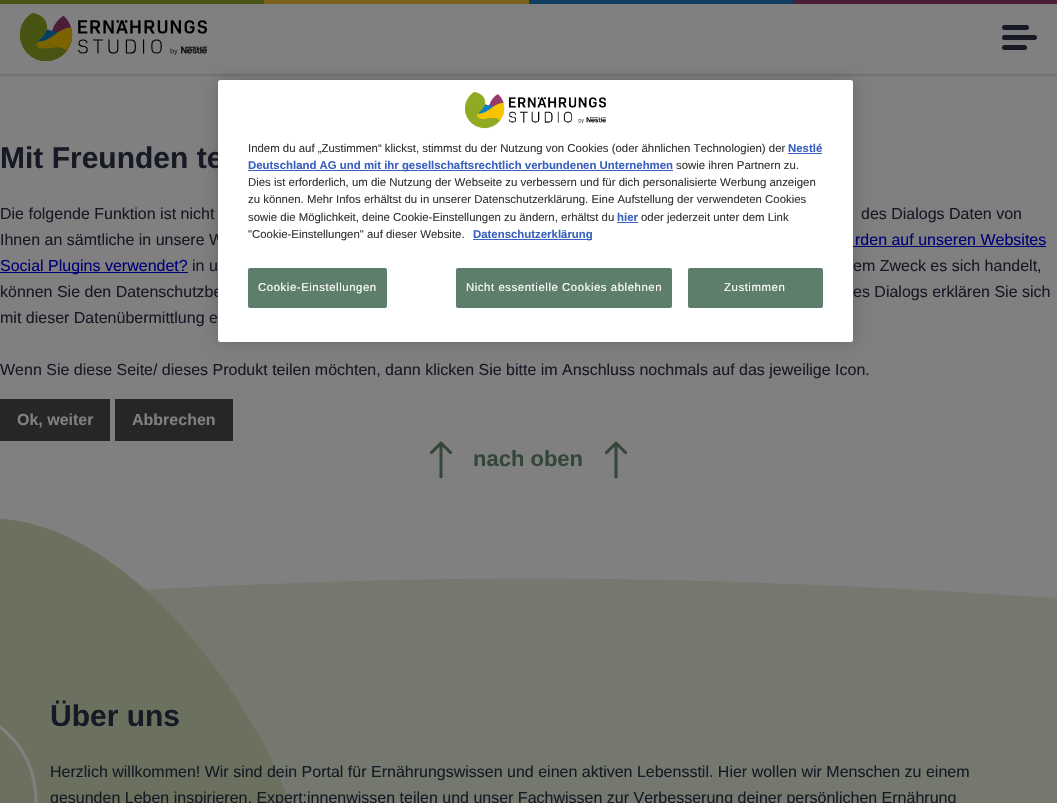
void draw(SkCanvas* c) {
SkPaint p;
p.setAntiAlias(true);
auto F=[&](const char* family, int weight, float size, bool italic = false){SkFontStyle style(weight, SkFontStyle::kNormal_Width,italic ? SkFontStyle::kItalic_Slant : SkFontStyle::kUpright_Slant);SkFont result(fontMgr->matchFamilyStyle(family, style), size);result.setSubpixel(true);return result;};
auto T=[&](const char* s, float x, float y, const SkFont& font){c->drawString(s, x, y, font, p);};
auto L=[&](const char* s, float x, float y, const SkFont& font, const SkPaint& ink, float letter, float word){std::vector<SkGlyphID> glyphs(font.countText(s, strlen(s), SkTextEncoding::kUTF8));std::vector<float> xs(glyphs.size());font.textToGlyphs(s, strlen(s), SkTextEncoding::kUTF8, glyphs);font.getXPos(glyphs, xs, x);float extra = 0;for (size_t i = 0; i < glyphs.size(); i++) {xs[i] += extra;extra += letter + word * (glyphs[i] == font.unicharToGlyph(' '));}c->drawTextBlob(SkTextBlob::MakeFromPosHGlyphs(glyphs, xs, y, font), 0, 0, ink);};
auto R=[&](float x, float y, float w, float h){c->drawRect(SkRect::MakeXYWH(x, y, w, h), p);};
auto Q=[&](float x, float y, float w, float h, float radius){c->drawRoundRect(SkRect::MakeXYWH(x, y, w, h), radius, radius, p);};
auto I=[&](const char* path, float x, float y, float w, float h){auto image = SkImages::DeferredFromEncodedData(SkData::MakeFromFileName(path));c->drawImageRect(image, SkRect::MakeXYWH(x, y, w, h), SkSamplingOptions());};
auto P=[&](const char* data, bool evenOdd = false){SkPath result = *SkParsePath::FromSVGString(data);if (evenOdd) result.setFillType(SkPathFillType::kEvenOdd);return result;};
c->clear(0xff808080);
I("2.png",20,13,187,48);
{
const SkColor colors[] = {0xff6d6d6d,0xff808080};
const float stops[] = {0,1};
const SkPoint ends[] = {{529,74}, {529,77}};
p.setShader(SkGradientShader::MakeLinear(ends, colors, stops, 2, SkTileMode::kClamp));
p.setAlpha(255);
}
R(0,74,1057,3);
p.setShader(nullptr);
p.setColor(0xff000077);
R(853,246,193,1);
p.setColor(0x33000000);
p.setMaskFilter(SkMaskFilter::MakeBlur(kNormal_SkBlurStyle, 9));
c->drawRoundRect(SkRect::MakeXYWH(218,80,635,262),2.5,2.5,p);
p.setMaskFilter(nullptr);
auto f1 = F("Liberation Sans",700,30);
p.setColor(0xff171a25);
T("Mit Freunden te",0,168,f1);
auto f2 = F("Liberation Sans",400,16);
T("Ihnen an sämtliche in unsere W",0,245,f2);
T("können Sie den Datenschutzbe",0,297,f2);
p.setColor(0xffffffff);
Q(218,80,635,262,2.5);
I("1.png",465,92,141,37);
auto f3 = F("Liberation Sans",400,11.4);
p.setColor(0xff333333);
T("Indem du auf „Zustimmen“ klickst, stimmst du der Nutzung von Cookies (oder ähnlichen Technologien) der",248,152,f3);
auto f4 = F("Liberation Sans",700,11.4);
p.setColor(0xff3860be);
T("Nestlé",788,152,f4);
R(788,153,34,1);
R(248,170,425,1);
T("Deutschland AG und mit ihr gesellschaftsrechtlich verbundenen Unternehmen",248,169,f4);
p.setColor(0xff333333);
T("sowie ihren Partnern zu.",676,169,f3);
T("Dies ist erforderlich, um die Nutzung der Webseite zu verbessern und für dich personalisierte Werbung anzeigen",248,186,f3);
T("zu können. Mehr Infos erhältst du in unserer Datenschutzerklärung. Eine Aufstellung der verwendeten Cookies",248,203,f3);
T("sowie die Möglichkeit, deine Cookie-Einstellungen zu ändern, erhältst du",248,221,f3);
p.setColor(0xff3860be);
T("hier",617,221,f4);
R(617,222,21,1);
p.setColor(0xff333333);
T("oder jederzeit unter dem Link",641,221,f3);
T("\"Cookie-Einstellungen\" auf dieser Website.",248,238,f3);
p.setColor(0xff3860be);
R(473,239,119,1);
T("Datenschutzerklärung",473,238,f4);
p.setColor(0xff5d7e6a);
Q(248,268,139,40,2);
p.setColor(0xffffffff);
L("Cookie-Einstellungen",258,291,f3,p,.55,0);
p.setColor(0xff5d7e6a);
Q(456,268,216,40,2);
p.setColor(0xffffffff);
L("Nicht essentielle Cookies ablehnen",466,291,f3,p,.55,0);
p.setColor(0xff5d7e6a);
Q(688,268,135,40,2);
p.setColor(0xffffffff);
L("Zustimmen",724,291,f3,p,.55,0);
p.setColor(0xff495516);
R(0,0,264,4);
p.setColor(0xff7c621a);
R(264,0,265,4);
p.setColor(0xff0f3d5f);
R(529,0,264,4);
p.setColor(0xff4d1d37);
R(793,0,264,4);
p.setColor(0xff171a25);
Q(1002,25,27,5,2.5);
Q(1002,35,35,5,2.5);
Q(1002,45,25,5,2.5);
T("Die folgende Funktion ist nicht",0,219,f2);
T("des Dialogs Daten von",861,219,f2);
p.setColor(0xff000077);
T("rden auf unseren Websites",855,245,f2);
R(0,272,188,1);
T("Social Plugins verwendet?",0,271,f2);
p.setColor(0xff171a25);
T("in u",192,271,f2);
T("em Zweck es sich handelt,",853,271,f2);
T("es Dialogs erklären Sie sich",853,297,f2);
T("mit dieser Datenübermittlung e",0,323,f2);
T("Wenn Sie diese Seite/ dieses Produkt teilen möchten, dann klicken Sie bitte im Anschluss nochmals auf das jeweilige Icon.",0,375,f2);
p.setColor(0xff262626);
R(0,399,110,42);
auto f5 = F("Liberation Sans",700,16);
p.setColor(0xff808080);
T("Ok, weiter",17,425,f5);
p.setColor(0xff262626);
R(115,399,118,42);
p.setColor(0xff808080);
T("Abbrechen",132,425,f5);
I("3.png",430,441,22,37);
auto f6 = F("Liberation Sans",700,22);
p.setColor(0xff34453a);
T("nach oben",473,466,f6);
I("3.png",605,441,22,37);
p.setColor(0xff75786e);
R(144,578,913,225);
p.setColor(0xff808080);
c->drawPath(P("M1057 598c-409-26-641-26-1057 0v-20h1057z"),p);
I("4.png",0,518,289,285);
p.setColor(0xff171a25);
T("Über uns",50,726,f1);
T("Herzlich willkommen! Wir sind dein Portal für Ernährungswissen und einen aktiven Lebensstil. Hier wollen wir Menschen zu einem",50,777,f2);
T("gesunden Leben inspirieren, Expert:innenwissen teilen und unser Fachwissen zur Verbesserung deiner persönlichen Ernährung",50,803,f2);
}
